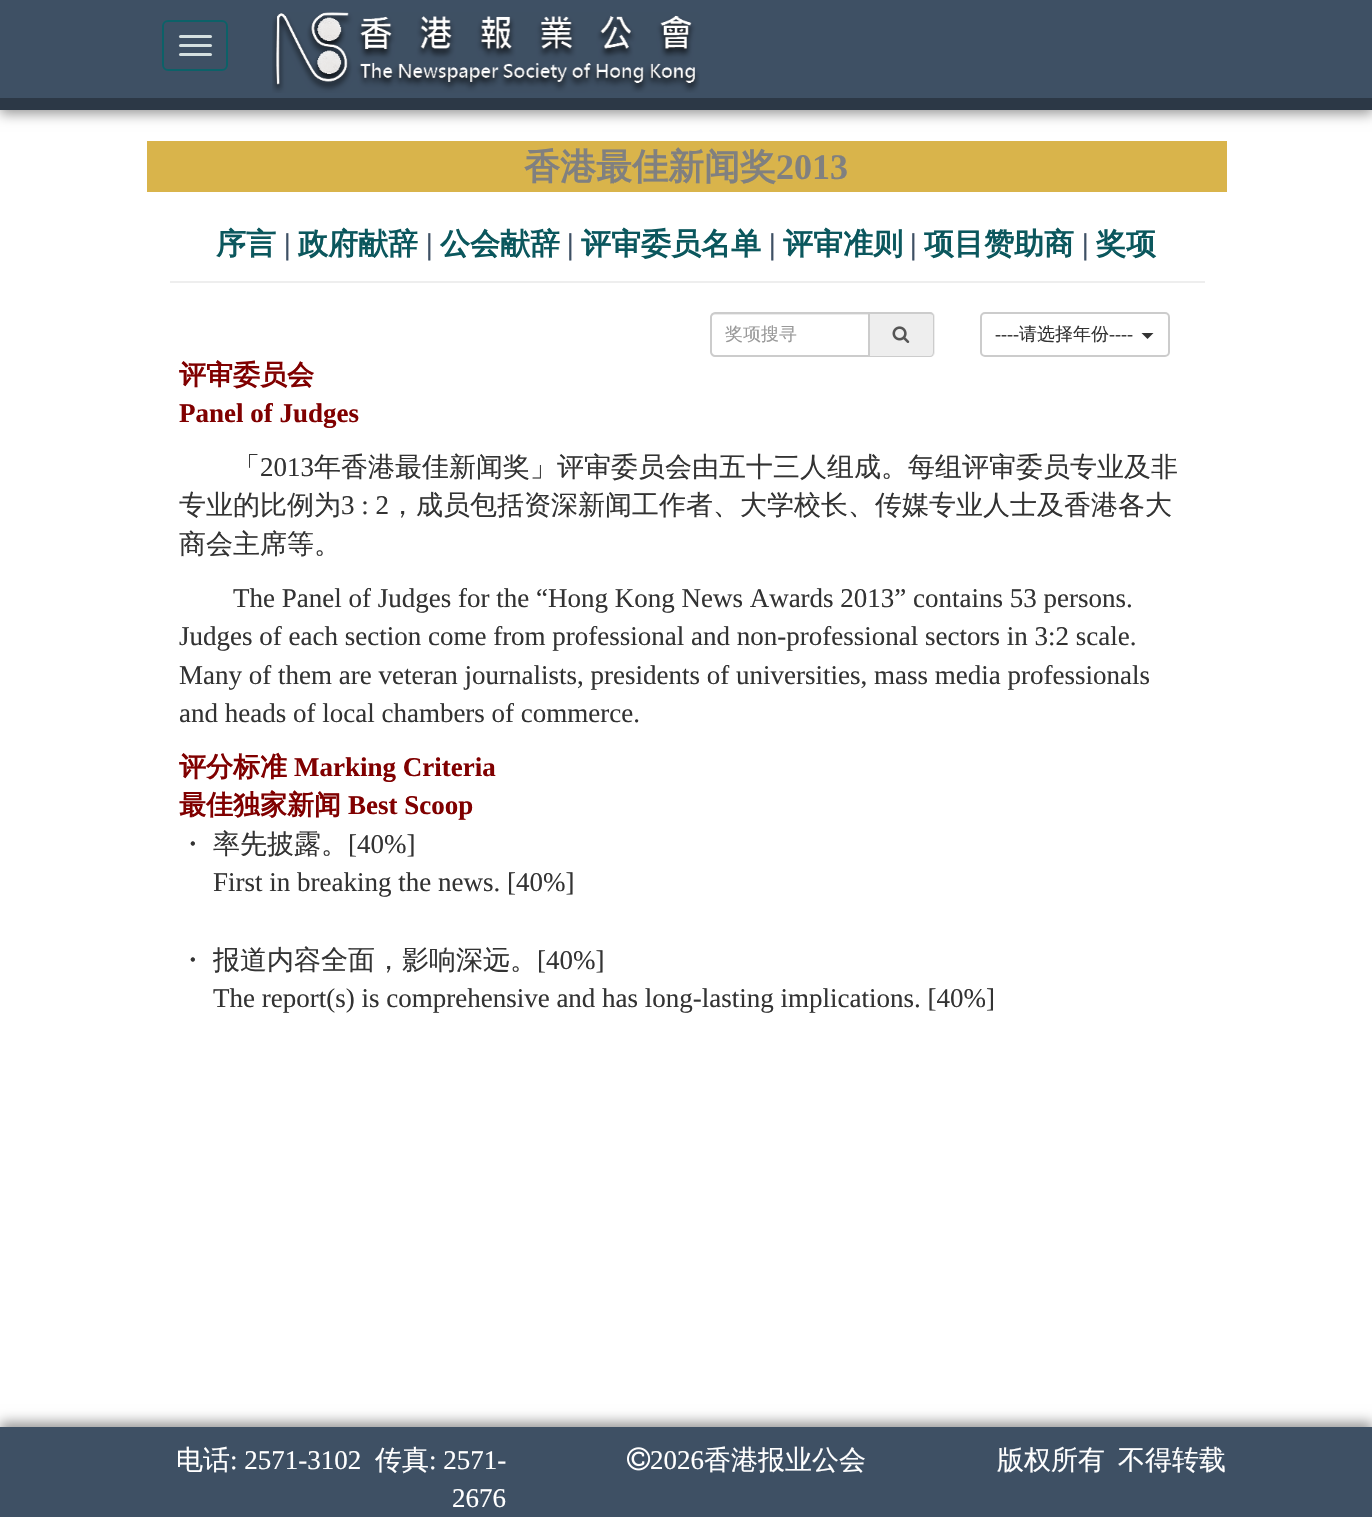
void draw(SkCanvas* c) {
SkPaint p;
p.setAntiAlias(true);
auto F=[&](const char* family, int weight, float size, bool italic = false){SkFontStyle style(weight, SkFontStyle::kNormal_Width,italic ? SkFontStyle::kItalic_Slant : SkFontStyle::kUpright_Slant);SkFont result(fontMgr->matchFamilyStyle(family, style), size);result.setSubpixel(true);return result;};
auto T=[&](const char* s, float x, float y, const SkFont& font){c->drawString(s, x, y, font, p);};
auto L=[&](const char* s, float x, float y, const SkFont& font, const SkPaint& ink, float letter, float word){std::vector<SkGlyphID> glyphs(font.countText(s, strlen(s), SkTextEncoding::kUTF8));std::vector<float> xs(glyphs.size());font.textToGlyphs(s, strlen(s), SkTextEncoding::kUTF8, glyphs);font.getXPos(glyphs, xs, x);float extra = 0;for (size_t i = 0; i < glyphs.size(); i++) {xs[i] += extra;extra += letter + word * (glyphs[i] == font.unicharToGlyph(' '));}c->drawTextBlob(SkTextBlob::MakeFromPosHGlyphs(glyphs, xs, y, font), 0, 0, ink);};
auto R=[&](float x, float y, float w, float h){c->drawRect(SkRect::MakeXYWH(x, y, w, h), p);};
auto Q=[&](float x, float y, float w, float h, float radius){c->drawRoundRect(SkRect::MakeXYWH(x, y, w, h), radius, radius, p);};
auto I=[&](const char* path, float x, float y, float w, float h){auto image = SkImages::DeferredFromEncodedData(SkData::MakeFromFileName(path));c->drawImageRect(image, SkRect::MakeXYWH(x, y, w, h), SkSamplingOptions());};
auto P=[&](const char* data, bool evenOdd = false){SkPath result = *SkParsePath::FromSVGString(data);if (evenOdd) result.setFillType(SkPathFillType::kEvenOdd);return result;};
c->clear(0xffffffff);
p.setColor(0xff999999);
p.setMaskFilter(SkMaskFilter::MakeBlur(kNormal_SkBlurStyle, 6));
c->drawRect(SkRect::MakeXYWH(0,5,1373,109),p);
p.setMaskFilter(nullptr);
p.setColor(0xff3e5064);
R(0,0,1372,98);
p.setColor(0xff2c3846);
R(0,98,1372,12);
p.setStroke(true);
p.setStrokeWidth(2);
p.setColor(0xff0c6168);
c->drawRoundRect(SkRect::MakeXYWH(163,21,64,49),5,5,p);
p.setStroke(false);
p.setColor(0xffd5e0e0);
Q(179,35,33,3,1.5);
Q(179,44,33,3,1.5);
Q(179,53,33,3,1.5);
I("1.png",272,12,428,81);
p.setColor(0xffd9b44b);
R(147,141,1080,51);
auto f1 = F("WenQuanYi Zen Hei",700,36);
p.setColor(0xff808080);
T("香港最佳新闻奖",524,179,f1);
auto f2 = F("Liberation Serif",700,36);
T("2013",776,179,f2);
auto f3 = F("WenQuanYi Zen Hei",700,30);
p.setColor(0xff0b575d);
T("序言",216,254,f3);
auto f4 = F("Liberation Serif",700,30);
p.setColor(0xff3e5064);
T("|",284,254,f4);
p.setColor(0xff0b575d);
T("政府献辞",298,254,f3);
p.setColor(0xff3e5064);
T("|",426,254,f4);
p.setColor(0xff0b575d);
T("公会献辞",440,254,f3);
p.setColor(0xff3e5064);
T("|",567,254,f4);
p.setColor(0xff0b575d);
T("评审委员名单",581,254,f3);
p.setColor(0xff3e5064);
T("|",769,254,f4);
p.setColor(0xff0b575d);
T("评审准则",783,254,f3);
p.setColor(0xff3e5064);
T("|",910,254,f4);
p.setColor(0xff0b575d);
T("项目赞助商",924,254,f3);
p.setColor(0xff3e5064);
T("|",1082,254,f4);
p.setColor(0xff0b575d);
T("奖项",1096,254,f3);
p.setColor(0xffeeeeee);
R(170,281,1035,2);
p.setColor(0xffececec);
c->drawPath(P("M714 315h154v41h1v-42h-156c-2 0-2 2-2 4c0-2 1-3 3-3z"),p);
p.setStroke(true);
p.setColor(0xffcccccc);
c->drawPath(P("M715 313h154v43h-154c-2 0-4-2-4-4v-35c0-2 2-4 4-4z"),p);
auto f5 = F("WenQuanYi Zen Hei",500,18);
p.setStroke(false);
p.setColor(0xff999999);
T("奖项搜寻",725,340,f5);
p.setColor(0xffeeeeee);
c->drawPath(P("M870 312h60c3 0 5 2 5 5v35c0 3-2 5-5 5h-60z"),p);
p.setColor(0xffcccccc);
c->drawPath(P("M870 312h60c2 0 4 2 4 4v36c0 3-2 5-4 5h-60zm0 2h60c2 0 3 1 3 2v36c0 2-1 4-3 4h-60z",true),p);
I("2.png",892,326,18,17);
p.setStroke(true);
c->drawRoundRect(SkRect::MakeXYWH(981,313,188,43),4,4,p);
auto f6 = F("Liberation Serif",400,18);
p.setStroke(false);
p.setColor(0xff333333);
T("----",995,340,f6);
T("请选择年份",1019,340,f5);
T("----",1109,340,f6);
c->drawPath(P("M1141.5 333h12l-6 6z"),p);
auto f7 = F("WenQuanYi Zen Hei",700,27);
p.setColor(0xff800000);
T("评审委员会",179,384,f7);
auto f8 = F("Liberation Serif",700,27);
T("Panel of Judges",179,422,f8);
auto f9 = F("WenQuanYi Zen Hei",500,27);
p.setColor(0xff333333);
T("「",233,476,f9);
auto f10 = F("Liberation Serif",400,27);
T("2013",260,476,f10);
T("年香港最佳新闻奖」评审委员会由五十三人组成。每组评审委员专业及非",314,476,f9);
T("专业的比例为",179,514,f9);
T("3 : 2",341,514,f10);
T("，成员包括资深新闻工作者、大学校长、传媒专业人士及香港各大",389,514,f9);
T("商会主席等。",179,553,f9);
T("The Panel of Judges for the “Hong Kong News Awards 2013” contains 53 persons.",233,607,f10);
T("Judges of each section come from professional and non-professional sectors in 3:2 scale.",179,645,f10);
T("Many of them are veteran journalists, presidents of universities, mass media professionals",179,684,f10);
T("and heads of local chambers of commerce.",179,722,f10);
p.setColor(0xff800000);
T("评分标准",179,776,f7);
T("Marking Criteria",294,776,f8);
T("最佳独家新闻",179,814,f7);
T("Best Scoop",348,814,f8);
p.setColor(0xff333333);
L("・ 率先披露。",179,853,f9,p,0,-1);
T("[40%]",348,853,f10);
T("First in breaking the news. [40%]",213,891,f10);
L("・ 报道内容全面，影响深远。",179,969,f9,p,0,-1);
T("[40%]",537,969,f10);
T("The report(s) is comprehensive and has long-lasting implications. [40%]",213,1007,f10);
p.setColor(0xff999999);
p.setMaskFilter(SkMaskFilter::MakeBlur(kNormal_SkBlurStyle, 6));
c->drawRect(SkRect::MakeXYWH(0,1422,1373,90),p);
p.setMaskFilter(nullptr);
p.setColor(0xff3e5064);
R(0,1427,1372,90);
p.setColor(0xffffffff);
T("电话",176,1469,f9);
T(": 2571-3102",230,1469,f10);
T("传真",375,1469,f9);
T(": 2571-",429,1469,f10);
T("2676",452,1507,f10);
I("3.png",627,1447,24,24);
T("2026",650,1469,f10);
T("香港报业公会",704,1469,f9);
T("版权所有",997,1469,f9);
T("不得转载",1118,1469,f9);
}
